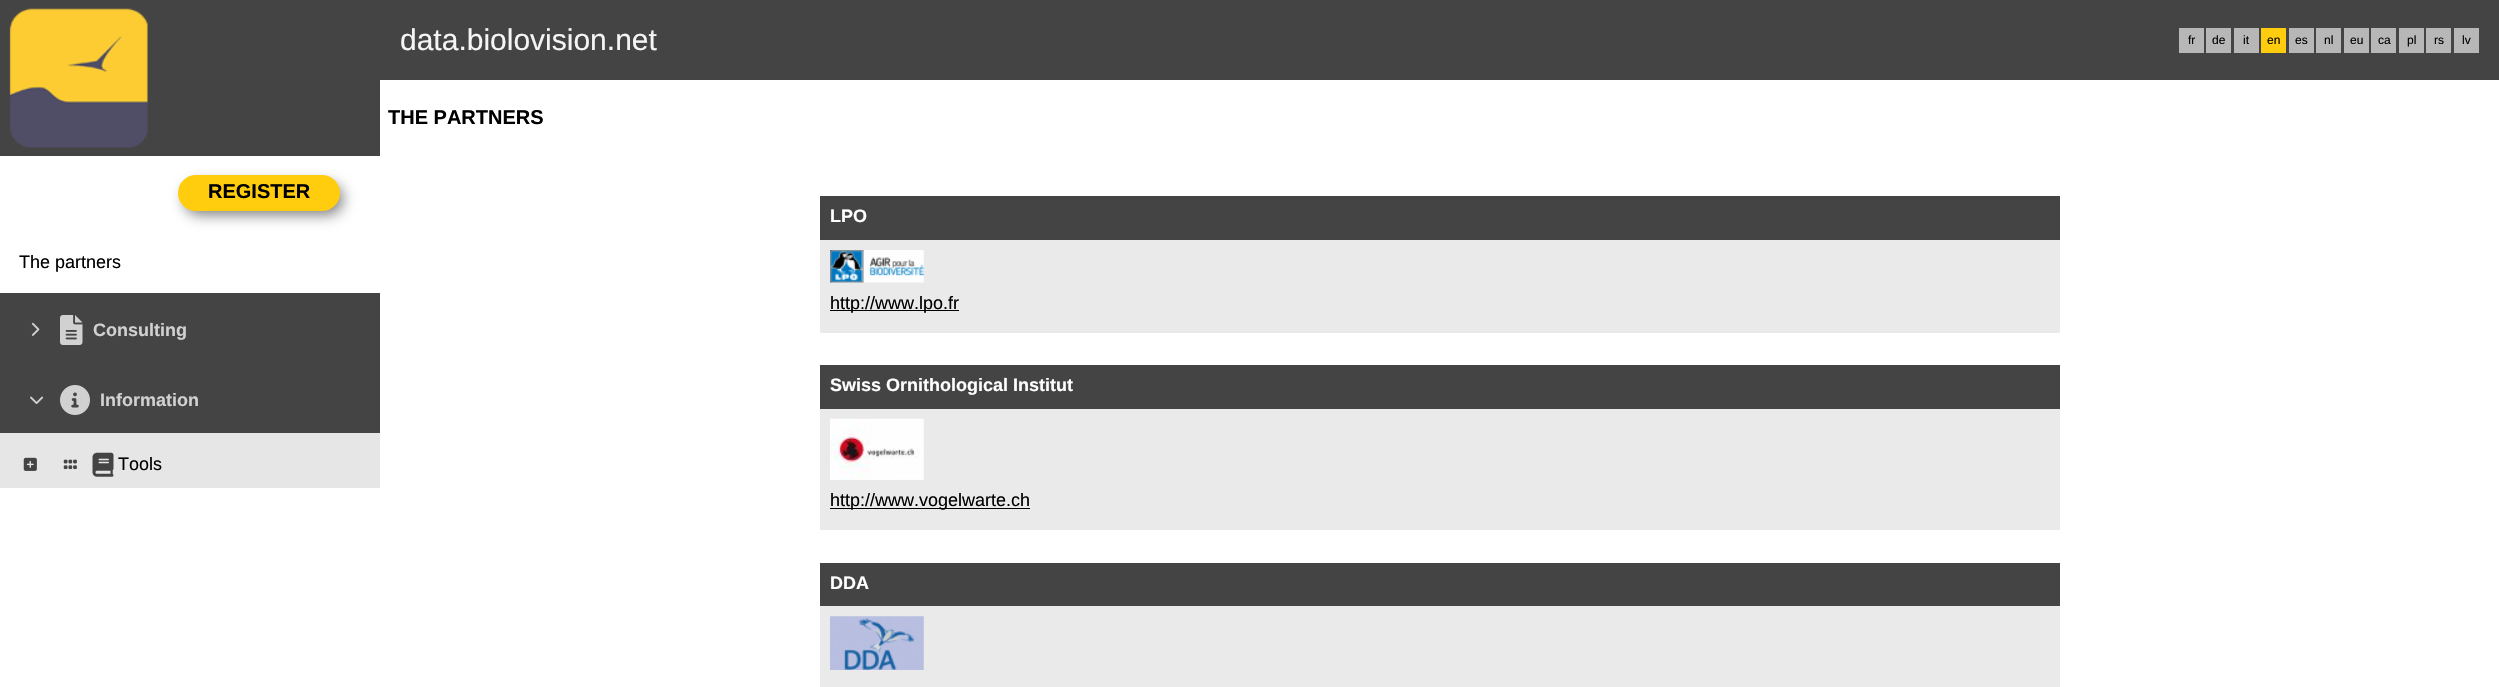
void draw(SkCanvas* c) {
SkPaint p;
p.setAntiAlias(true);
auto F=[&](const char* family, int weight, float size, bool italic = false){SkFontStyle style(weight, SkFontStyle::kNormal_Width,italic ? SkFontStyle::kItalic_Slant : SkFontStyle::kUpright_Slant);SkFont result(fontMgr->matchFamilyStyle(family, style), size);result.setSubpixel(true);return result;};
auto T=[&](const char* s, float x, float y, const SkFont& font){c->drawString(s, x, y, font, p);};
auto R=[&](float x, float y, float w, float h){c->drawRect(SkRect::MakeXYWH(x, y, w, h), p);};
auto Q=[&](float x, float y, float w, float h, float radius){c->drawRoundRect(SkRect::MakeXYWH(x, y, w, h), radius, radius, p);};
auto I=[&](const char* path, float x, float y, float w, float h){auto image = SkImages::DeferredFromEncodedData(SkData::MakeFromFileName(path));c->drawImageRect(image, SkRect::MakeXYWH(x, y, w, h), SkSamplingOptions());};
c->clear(0xffffffff);
p.setColor(0xff444444);
R(0,0,2499,80);
R(0,80,380,353);
I("1.png",9,8,139,140);
auto f1 = F("Liberation Sans",400,30);
p.setColor(0xfff5f5f5);
T("data.biolovision.net",400,50,f1);
p.setColor(0xffb7b7b7);
R(2179,28,25,25);
auto f2 = F("Liberation Sans",400,12);
p.setColor(0xff000000);
T("fr",2188,44,f2);
p.setColor(0xffb7b7b7);
R(2206,28,25,25);
p.setColor(0xff000000);
T("de",2212,44,f2);
p.setColor(0xffb7b7b7);
R(2234,28,25,25);
p.setColor(0xff000000);
T("it",2243,44,f2);
p.setColor(0xffffcd0d);
R(2261,28,25,25);
p.setColor(0xff000000);
T("en",2267,44,f2);
p.setColor(0xffb7b7b7);
R(2289,28,25,25);
p.setColor(0xff000000);
T("es",2295,44,f2);
p.setColor(0xffb7b7b7);
R(2316,28,25,25);
p.setColor(0xff000000);
T("nl",2324,44,f2);
p.setColor(0xffb7b7b7);
R(2344,28,25,25);
p.setColor(0xff000000);
T("eu",2350,44,f2);
p.setColor(0xffb7b7b7);
R(2371,28,25,25);
p.setColor(0xff000000);
T("ca",2378,44,f2);
p.setColor(0xffb7b7b7);
R(2399,28,25,25);
p.setColor(0xff000000);
T("pl",2407,44,f2);
p.setColor(0xffb7b7b7);
R(2426,28,25,25);
p.setColor(0xff000000);
T("rs",2434,44,f2);
p.setColor(0xffb7b7b7);
R(2454,28,25,25);
p.setColor(0xff000000);
T("lv",2462,44,f2);
p.setColor(0xffffffff);
R(0,156,380,137);
p.setColor(0x80000000);
p.setMaskFilter(SkMaskFilter::MakeBlur(kNormal_SkBlurStyle, 7));
c->drawRoundRect(SkRect::MakeXYWH(184,183,159,32),16,16,p);
p.setMaskFilter(nullptr);
p.setColor(0xffffcd0d);
Q(178,175,162,36,18);
auto f3 = F("Liberation Sans",700,20);
p.setColor(0xff000000);
T("REGISTER",208,198,f3);
auto f4 = F("Liberation Sans",400,18);
T("The partners",19,268,f4);
I("2.png",31,322,9,14);
I("3.png",60,315,23,30);
auto f5 = F("Liberation Sans",700,18);
p.setColor(0xffd1d1d1);
T("Consulting",93,336,f5);
I("4.png",30,396,14,8);
I("5.png",60,385,30,30);
T("Information",100,406,f5);
p.setColor(0xffe6e6e6);
R(0,433,380,55);
I("6.png",23,457,14,14);
I("7.png",63,459,14,11);
I("8.png",92,452,22,25);
p.setColor(0xff000000);
T("Tools",118,470,f4);
T("THE PARTNERS",388,124,f3);
p.setColor(0xff444444);
R(820,196,1240,44);
p.setColor(0xffffffff);
T("LPO",830,222,f5);
p.setColor(0xffeaeaea);
R(820,240,1240,93);
I("9.png",830,250,94,33);
p.setColor(0xff000000);
R(830,310,129,1);
T("http://www.lpo.fr",830,309,f4);
p.setColor(0xff444444);
R(820,365,1240,44);
p.setColor(0xffffffff);
T("Swiss Ornithological Institut",830,391,f5);
p.setColor(0xffeaeaea);
R(820,409,1240,121);
I("10.png",830,418,94,62);
p.setColor(0xff000000);
R(830,508,200,1);
T("http://www.vogelwarte.ch",830,506,f4);
p.setColor(0xff444444);
R(820,563,1240,43);
p.setColor(0xffffffff);
T("DDA",830,589,f5);
p.setColor(0xffeaeaea);
R(820,606,1240,81);
I("11.png",830,616,94,54);
}
